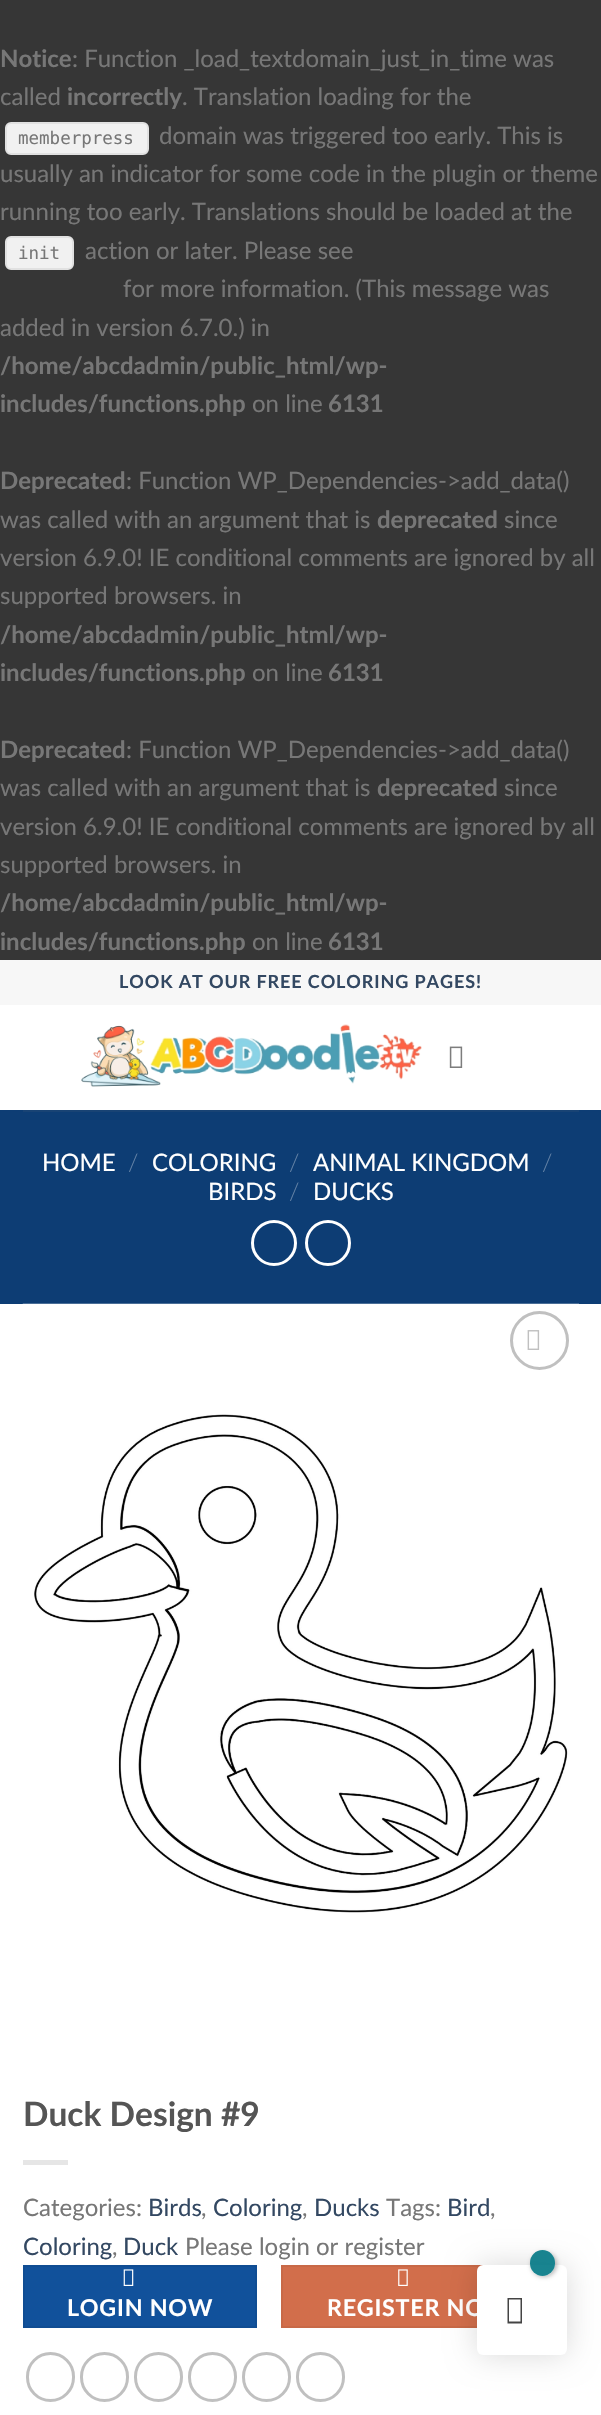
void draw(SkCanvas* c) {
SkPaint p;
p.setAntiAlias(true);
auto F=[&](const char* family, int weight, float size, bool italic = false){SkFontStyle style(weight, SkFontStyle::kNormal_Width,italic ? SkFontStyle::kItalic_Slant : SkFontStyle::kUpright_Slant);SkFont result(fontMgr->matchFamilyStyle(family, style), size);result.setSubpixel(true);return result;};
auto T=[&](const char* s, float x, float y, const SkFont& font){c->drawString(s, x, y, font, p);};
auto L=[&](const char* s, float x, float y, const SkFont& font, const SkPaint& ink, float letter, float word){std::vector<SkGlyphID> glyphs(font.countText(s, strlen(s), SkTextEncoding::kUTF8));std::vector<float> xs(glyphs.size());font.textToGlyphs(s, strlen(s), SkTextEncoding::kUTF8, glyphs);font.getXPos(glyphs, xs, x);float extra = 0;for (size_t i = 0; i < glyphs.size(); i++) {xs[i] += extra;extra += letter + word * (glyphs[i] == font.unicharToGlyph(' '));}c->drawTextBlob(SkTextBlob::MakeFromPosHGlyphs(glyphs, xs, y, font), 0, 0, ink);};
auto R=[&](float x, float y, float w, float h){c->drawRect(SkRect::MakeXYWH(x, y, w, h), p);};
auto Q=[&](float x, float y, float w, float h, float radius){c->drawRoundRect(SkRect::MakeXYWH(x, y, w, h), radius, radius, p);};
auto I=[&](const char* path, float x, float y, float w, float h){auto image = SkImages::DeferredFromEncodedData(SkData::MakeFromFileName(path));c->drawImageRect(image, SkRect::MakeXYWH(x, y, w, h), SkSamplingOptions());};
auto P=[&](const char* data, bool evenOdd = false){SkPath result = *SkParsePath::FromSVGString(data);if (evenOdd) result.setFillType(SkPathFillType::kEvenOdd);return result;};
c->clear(0xff363636);
auto f1 = F("Lato",700,24);
p.setColor(0xff777777);
T("Notice",0,67,f1);
auto f2 = F("Lato",400,24);
T(": Function _load_textdomain_just_in_time was",72,67,f2);
T("called",0,105,f2);
T("incorrectly",67,105,f1);
T(". Translation loading for the",182,105,f2);
p.setColor(0xfff1f1f1);
c->drawRoundRect(SkRect::MakeXYWH(6,123,142,31),5,5,p);
p.setStroke(true);
p.setStrokeWidth(2);
p.setColor(0xffe1e1e1);
c->drawRoundRect(SkRect::MakeXYWH(6,123,142,31),5,5,p);
auto f3 = F("DejaVu Sans Mono",400,17.5);
p.setStroke(false);
p.setColor(0xff777777);
T("memberpress",18,144,f3);
T("domain was triggered too early. This is",159,144,f2);
T("usually an indicator for some code in the plugin or theme",0,182,f2);
T("running too early. Translations should be loaded at the",0,220,f2);
p.setColor(0xfff1f1f1);
c->drawRoundRect(SkRect::MakeXYWH(6,237,67,32),5,5,p);
p.setStroke(true);
p.setColor(0xffe1e1e1);
c->drawRoundRect(SkRect::MakeXYWH(6,237,67,32),5,5,p);
p.setStroke(false);
p.setColor(0xff777777);
T("init",18,259,f3);
T("action or later. Please see",85,259,f2);
T("for more information. (This message was",123,297,f2);
T("added in version 6.7.0.) in",0,336,f2);
T("/home/abcdadmin/public_html/wp-",0,374,f1);
T("includes/functions.php",0,412,f1);
T("on line",252,412,f2);
T("6131",328,412,f1);
T("Deprecated",0,489,f1);
T(": Function WP_Dependencies->add_data()",126,489,f2);
T("was called with an argument that is",0,528,f2);
T("deprecated",377,528,f1);
T("since",504,528,f2);
T("version 6.9.0! IE conditional comments are ignored by all",0,566,f2);
T("supported browsers. in",0,604,f2);
T("/home/abcdadmin/public_html/wp-",0,643,f1);
T("includes/functions.php",0,681,f1);
T("on line",252,681,f2);
T("6131",328,681,f1);
T("Deprecated",0,758,f1);
T(": Function WP_Dependencies->add_data()",126,758,f2);
T("was called with an argument that is",0,796,f2);
T("deprecated",377,796,f1);
T("since",504,796,f2);
T("version 6.9.0! IE conditional comments are ignored by all",0,835,f2);
T("supported browsers. in",0,873,f2);
T("/home/abcdadmin/public_html/wp-",0,911,f1);
T("includes/functions.php",0,950,f1);
T("on line",252,950,f2);
T("6131",328,950,f1);
p.setColor(0xffffffff);
R(0,1005,601,1410);
p.setColor(0xfff7f7f7);
R(0,960,601,45);
auto f4 = F("Lato",700,18);
p.setColor(0xff334862);
L("LOOK AT OUR FREE COLORING PAGES!",119,988,f4,p,.9,0);
I("1.png",81,1024,341,63);
I("2.png",449,1046,14,22);
p.setColor(0xff0d3d74);
R(0,1110,601,194);
p.setColor(0xff184374);
R(23,1110,556,2);
p.setColor(0xffffffff);
T("HOME",42,1171,f2);
auto f5 = F("Lato",300,24);
p.setColor(0xff6281a5);
T("/",128,1171,f5);
p.setColor(0xffffffff);
T("COLORING",152,1171,f2);
p.setColor(0xff6281a5);
T("/",289,1171,f5);
p.setColor(0xffffffff);
T("ANIMAL KINGDOM",313,1171,f2);
p.setColor(0xff6281a5);
T("/",542,1171,f5);
p.setColor(0xffffffff);
T("BIRDS",208,1200,f2);
p.setColor(0xff6281a5);
T("/",289,1200,f5);
p.setColor(0xffffffff);
T("DUCKS",313,1200,f2);
p.setStroke(true);
p.setStrokeWidth(3);
c->drawCircle(274,1243,21.5,p);
c->drawCircle(328,1243,21.5,p);
I("3.png",22,1303,557,610);
p.setColor(0xffc0c0c0);
c->drawCircle(539.5,1340.5,28,p);
I("4.png",527,1330,13,20);
auto f6 = F("Lato",700,33.5);
p.setStroke(false);
p.setColor(0xff555555);
T("Duck Design #9",23,2126,f6);
p.setColor(0xffe6e6e6);
R(23,2160,45,5);
p.setColor(0xff777777);
T("Categories:",23,2216,f2);
p.setColor(0xff334862);
T("Birds",148,2216,f2);
p.setColor(0xff777777);
T(",",201,2216,f2);
p.setColor(0xff334862);
T("Coloring",213,2216,f2);
p.setColor(0xff777777);
T(",",302,2216,f2);
p.setColor(0xff334862);
T("Ducks",314,2216,f2);
p.setColor(0xff777777);
T("Tags:",386,2216,f2);
p.setColor(0xff334862);
T("Bird",447,2216,f2);
p.setColor(0xff777777);
T(",",490,2216,f2);
p.setColor(0xff334862);
T("Coloring",23,2255,f2);
p.setColor(0xff777777);
T(",",112,2255,f2);
p.setColor(0xff334862);
T("Duck",123,2255,f2);
p.setColor(0xff777777);
T("Please login or register",185,2255,f2);
p.setColor(0xff11519b);
c->drawRect(SkRect::MakeXYWH(24,2266,232,61),p);
p.setStroke(true);
p.setStrokeWidth(2);
p.setColor(0xff104d93);
c->drawRect(SkRect::MakeXYWH(24,2266,232,61),p);
I("5.png",123,2269,11,17);
auto f7 = F("Lato",700,23.25);
p.setStroke(false);
p.setColor(0xffffffff);
L("LOGIN NOW",67,2316,f7,p,.75,0);
p.setColor(0xffd26e4b);
R(283,2267,196,59);
p.setStroke(true);
p.setColor(0xffc86947);
c->drawRect(SkRect::MakeXYWH(282,2266,272,61),p);
I("6.png",398,2269,10,17);
p.setStroke(false);
p.setColor(0xffffffff);
L("REGISTER NO",327,2316,f7,p,.75,0);
p.setStroke(true);
p.setStrokeWidth(3);
p.setColor(0xffc0c0c0);
c->drawRoundRect(SkRect::MakeXYWH(27.5,2353.5,46,47),23,23,p);
c->drawRoundRect(SkRect::MakeXYWH(81.5,2353.5,46,47),23,23,p);
c->drawRoundRect(SkRect::MakeXYWH(135.5,2353.5,46,47),23,23,p);
c->drawRoundRect(SkRect::MakeXYWH(189.5,2353.5,46,47),23,23,p);
c->drawRoundRect(SkRect::MakeXYWH(243.5,2353.5,46,47),23,23,p);
c->drawRoundRect(SkRect::MakeXYWH(297.5,2353.5,46,47),23,23,p);
p.setStroke(false);
p.setColor(0x26000000);
p.setMaskFilter(SkMaskFilter::MakeBlur(kNormal_SkBlurStyle, 15));
c->drawRoundRect(SkRect::MakeXYWH(477,2265,90,90),6,6,p);
p.setMaskFilter(nullptr);
p.setColor(0xffffffff);
Q(477,2265,90,90,6);
c->save();
c->clipPath(P("M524 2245h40v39h-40zm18.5 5c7 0 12.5 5.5 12.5 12.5v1c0 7-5.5 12.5-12.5 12.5c-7 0-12.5-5.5-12.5-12.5v-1c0-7 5.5-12.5 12.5-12.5z",true),true);
p.setColor(0x45000000);
p.setMaskFilter(SkMaskFilter::MakeBlur(kNormal_SkBlurStyle, 2));
c->drawRoundRect(SkRect::MakeXYWH(531,2252,26,25),12.5,12.5,p);
p.setMaskFilter(nullptr);
c->restore();
p.setColor(0xe6007784);
Q(530,2250,25,26,12.5);
p.setColor(0xff444444);
c->drawPath(P("M507.5 2323.5v-25.5h14.5v25.5zm1.5-2h11.5v-22h-11.5z"),p);
}
